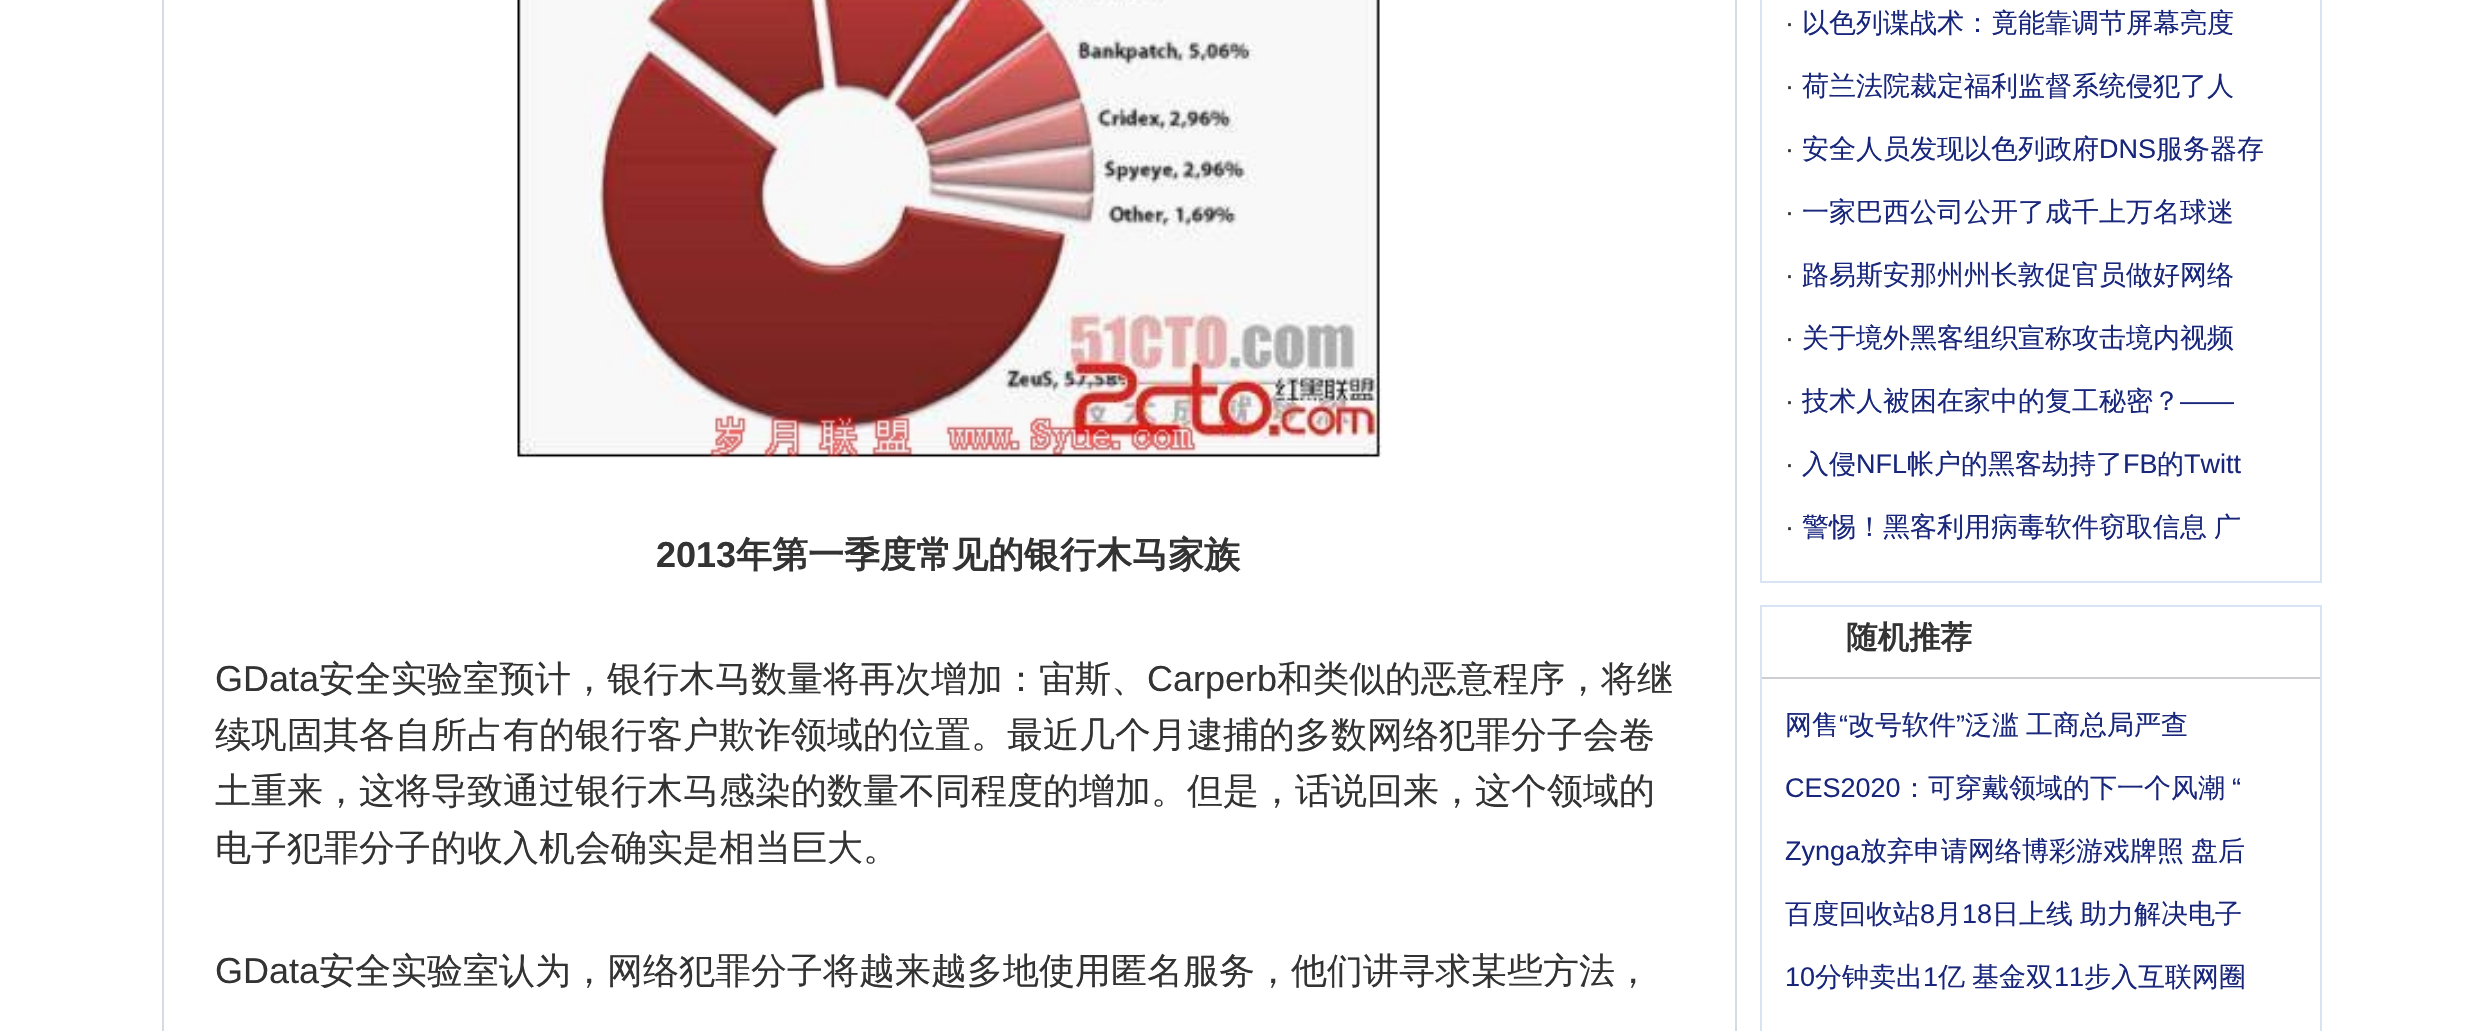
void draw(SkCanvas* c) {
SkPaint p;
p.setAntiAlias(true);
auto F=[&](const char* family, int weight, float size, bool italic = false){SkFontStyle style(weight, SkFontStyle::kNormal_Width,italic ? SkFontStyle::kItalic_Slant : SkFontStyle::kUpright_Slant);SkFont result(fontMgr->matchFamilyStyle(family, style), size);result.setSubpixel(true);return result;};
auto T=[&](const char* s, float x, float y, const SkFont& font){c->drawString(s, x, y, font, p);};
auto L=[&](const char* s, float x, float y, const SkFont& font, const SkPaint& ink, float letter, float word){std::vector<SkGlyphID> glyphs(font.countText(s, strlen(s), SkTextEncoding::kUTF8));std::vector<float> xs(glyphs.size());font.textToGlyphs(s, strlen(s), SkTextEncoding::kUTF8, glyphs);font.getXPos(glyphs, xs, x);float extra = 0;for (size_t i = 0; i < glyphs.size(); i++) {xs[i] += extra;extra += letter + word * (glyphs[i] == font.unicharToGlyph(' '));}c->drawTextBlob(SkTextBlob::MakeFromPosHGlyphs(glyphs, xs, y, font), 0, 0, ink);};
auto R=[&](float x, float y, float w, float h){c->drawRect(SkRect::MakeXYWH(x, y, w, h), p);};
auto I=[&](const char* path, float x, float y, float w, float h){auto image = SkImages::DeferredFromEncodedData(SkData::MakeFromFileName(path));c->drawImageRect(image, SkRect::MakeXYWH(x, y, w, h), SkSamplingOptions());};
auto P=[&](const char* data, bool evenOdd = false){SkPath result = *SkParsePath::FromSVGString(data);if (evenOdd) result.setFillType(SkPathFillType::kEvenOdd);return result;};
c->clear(0xffffffff);
p.setColor(0xffd3dbe6);
c->drawPath(P("M1737-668v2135l-2-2v-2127z"),p);
c->drawPath(P("M162 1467v-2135l2 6v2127z"),p);
I("1.png",517,0,865,459);
auto f1 = F("Liberation Sans",700,36);
p.setColor(0xff333333);
T("2013",656,567,f1);
auto f2 = F("WenQuanYi Zen Hei",700,36);
T("年第一季度常见的银行木马家族",736,567,f2);
auto f3 = F("Liberation Sans",400,36);
T("GData",215,691,f3);
auto f4 = F("WenQuanYi Zen Hei",500,36);
T("安全实验室预计，银行木马数量将再次增加：宙斯、",319,691,f4);
T("Carperb",1147,691,f3);
T("和类似的恶意程序，将继",1277,691,f4);
T("续巩固其各自所占有的银行客户欺诈领域的位置。最近几个月逮捕的多数网络犯罪分子会卷",215,747,f4);
T("土重来，这将导致通过银行木马感染的数量不同程度的增加。但是，话说回来，这个领域的",215,803,f4);
T("电子犯罪分子的收入机会确实是相当巨大。",215,860,f4);
T("GData",215,983,f3);
T("安全实验室认为，网络犯罪分子将越来越多地使用匿名服务，他们讲寻求某些方法，",319,983,f4);
p.setStroke(true);
p.setStrokeWidth(2);
p.setColor(0xffd9e4f3);
c->drawRect(SkRect::MakeXYWH(1761,-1,560,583),p);
auto f5 = F("Liberation Sans",400,27);
p.setStroke(false);
p.setColor(0xff333333);
T("·",1785,32,f5);
auto f6 = F("WenQuanYi Zen Hei",500,27);
p.setColor(0xff18267b);
T("以色列谍战术：竟能靠调节屏幕亮度",1802,32,f6);
p.setColor(0xff333333);
T("·",1785,95,f5);
p.setColor(0xff18267b);
T("荷兰法院裁定福利监督系统侵犯了人",1802,95,f6);
p.setColor(0xff333333);
T("·",1785,158,f5);
p.setColor(0xff18267b);
T("安全人员发现以色列政府",1802,158,f6);
T("DNS",2099,158,f5);
T("服务器存",2156,158,f6);
p.setColor(0xff333333);
T("·",1785,221,f5);
p.setColor(0xff18267b);
T("一家巴西公司公开了成千上万名球迷",1802,221,f6);
p.setColor(0xff333333);
T("·",1785,284,f5);
p.setColor(0xff18267b);
T("路易斯安那州州长敦促官员做好网络",1802,284,f6);
p.setColor(0xff333333);
T("·",1785,347,f5);
p.setColor(0xff18267b);
T("关于境外黑客组织宣称攻击境内视频",1802,347,f6);
p.setColor(0xff333333);
T("·",1785,410,f5);
p.setColor(0xff18267b);
T("技术人被困在家中的复工秘密？",1802,410,f6);
T("——",2180,410,f5);
p.setColor(0xff333333);
T("·",1785,473,f5);
p.setColor(0xff18267b);
T("入侵",1802,473,f6);
T("NFL",1856,473,f5);
T("帐户的黑客劫持了",1907,473,f6);
T("FB",2123,473,f5);
T("的",2157,473,f6);
T("Twitt",2184,473,f5);
p.setColor(0xff333333);
T("·",1785,536,f5);
p.setColor(0xff18267b);
L("警惕！黑客利用病毒软件窃取信息 广",1802,536,f6,p,0,-1);
p.setStroke(true);
p.setColor(0xffd9e4f3);
c->drawRect(SkRect::MakeXYWH(1761,606,560,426),p);
p.setStroke(false);
p.setColor(0xffccced2);
R(1762,677,558,2);
auto f7 = F("WenQuanYi Zen Hei",700,31.5);
p.setColor(0xff333333);
T("随机推荐",1846,648,f7);
p.setColor(0xff18267b);
T("网售",1785,734,f6);
T("“",1839,734,f5);
T("改号软件",1848,734,f6);
T("”",1956,734,f5);
L("泛滥 工商总局严查",1965,734,f6,p,0,-1);
T("CES2020",1785,797,f5);
T("：可穿戴领域的下一个风潮",1901,797,f6);
T("“",2232,797,f5);
T("Zynga",1785,860,f5);
L("放弃申请网络博彩游戏牌照 盘后",1860,860,f6,p,0,-1);
T("百度回收站",1785,923,f6);
T("8",1920,923,f5);
T("月",1935,923,f6);
T("18",1962,923,f5);
L("日上线 助力解决电子",1992,923,f6,p,0,-1);
T("10",1785,986,f5);
T("分钟卖出",1815,986,f6);
T("1",1923,986,f5);
L("亿 基金双",1938,986,f6,p,0,-1);
T("11",2054,986,f5);
T("步入互联网圈",2084,986,f6);
}
